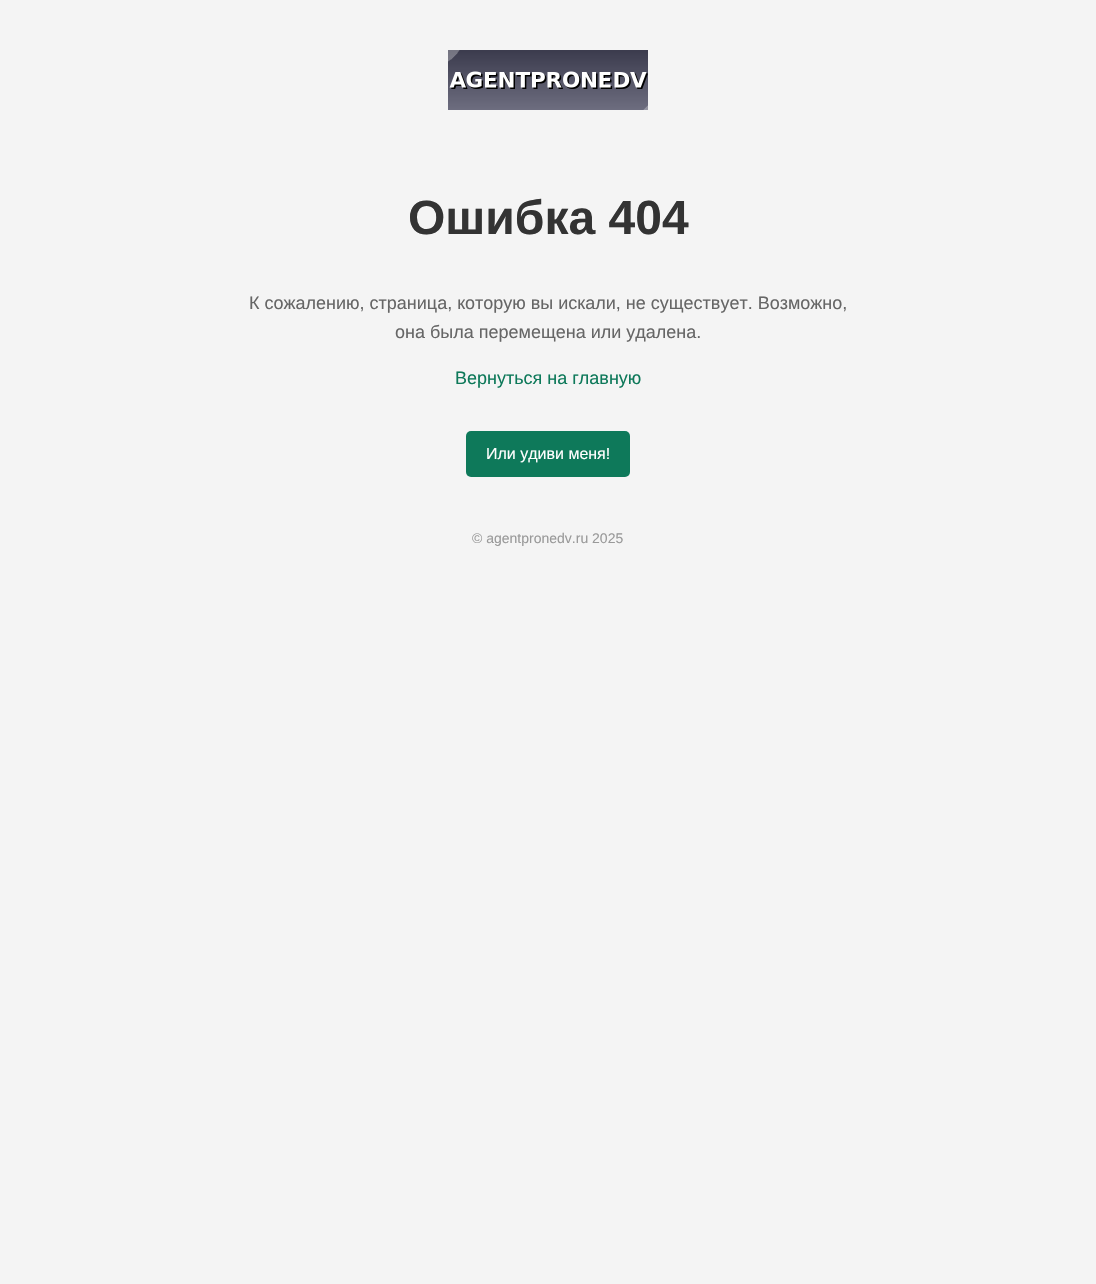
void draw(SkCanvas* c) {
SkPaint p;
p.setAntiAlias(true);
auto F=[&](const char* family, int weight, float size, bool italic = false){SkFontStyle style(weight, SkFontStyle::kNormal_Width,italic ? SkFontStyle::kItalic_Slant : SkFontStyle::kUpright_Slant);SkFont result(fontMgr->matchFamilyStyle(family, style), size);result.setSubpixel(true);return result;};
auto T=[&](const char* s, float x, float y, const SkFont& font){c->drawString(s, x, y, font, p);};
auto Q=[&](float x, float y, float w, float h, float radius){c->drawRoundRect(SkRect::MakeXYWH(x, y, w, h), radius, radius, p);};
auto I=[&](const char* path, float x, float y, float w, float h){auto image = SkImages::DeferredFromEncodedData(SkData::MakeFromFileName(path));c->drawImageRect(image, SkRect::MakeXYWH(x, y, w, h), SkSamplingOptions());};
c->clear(0xfff4f4f4);
I("1.png",448,50,200,60);
auto f1 = F("Liberation Sans",700,48);
p.setColor(0xff333333);
T("Ошибка 404",408,234,f1);
auto f2 = F("Liberation Sans",400,18);
p.setColor(0xff666666);
T("К сожалению, страница, которую вы искали, не существует. Возможно,",249,309,f2);
T("она была перемещена или удалена.",395,338,f2);
p.setColor(0xff0e795a);
T("Вернуться на главную",455,384,f2);
Q(466,431,164,46,5);
auto f3 = F("Liberation Sans",400,16);
p.setColor(0xffffffff);
T("Или удиви меня!",486,459,f3);
auto f4 = F("Liberation Sans",400,14);
p.setColor(0xff999999);
T("© agentpronedv.ru 2025",472,543,f4);
}
